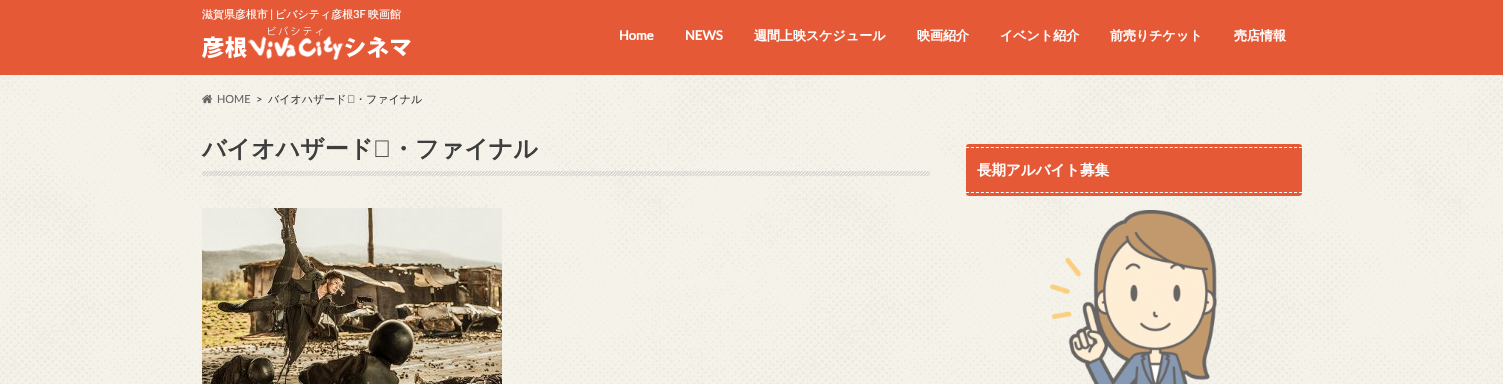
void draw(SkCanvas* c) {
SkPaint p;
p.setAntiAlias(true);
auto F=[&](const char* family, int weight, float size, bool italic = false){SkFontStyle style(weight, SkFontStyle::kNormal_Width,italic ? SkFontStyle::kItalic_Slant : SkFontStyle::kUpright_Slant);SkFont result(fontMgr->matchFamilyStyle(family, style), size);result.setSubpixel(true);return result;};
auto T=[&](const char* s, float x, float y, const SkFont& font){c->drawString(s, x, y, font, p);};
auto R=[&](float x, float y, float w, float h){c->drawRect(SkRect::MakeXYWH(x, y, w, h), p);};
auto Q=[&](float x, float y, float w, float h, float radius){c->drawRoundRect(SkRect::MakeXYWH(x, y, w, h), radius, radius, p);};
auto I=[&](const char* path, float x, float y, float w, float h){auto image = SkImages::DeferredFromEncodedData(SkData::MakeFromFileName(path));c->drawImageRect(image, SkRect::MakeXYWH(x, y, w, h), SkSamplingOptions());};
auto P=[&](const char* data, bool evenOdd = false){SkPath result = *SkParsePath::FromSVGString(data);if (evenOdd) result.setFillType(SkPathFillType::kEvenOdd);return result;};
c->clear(0xffffffff);
I("1.png",0,75,1503,309);
p.setColor(0xffe55937);
R(0,0,1503,75);
auto f1 = F("WenQuanYi Zen Hei",500,11);
p.setColor(0xffffffff);
T("滋賀県彦根市",202,18,f1);
auto f2 = F("Lato",400,11);
T("|",270,18,f2);
T("ビバシティ彦根",275,18,f1);
T("3F",353,18,f2);
T("映画館",368,18,f1);
I("2.png",202,26,209,34);
auto f3 = F("Lato",700,13);
T("Home",619,40,f3);
T("NEWS",685,40,f3);
auto f4 = F("WenQuanYi Zen Hei",700,13);
T("週間上映スケジュール",754,40,f4);
T("映画紹介",917,40,f4);
T("イベント紹介",1000,40,f4);
T("前売りチケット",1110,40,f4);
T("売店情報",1234,40,f4);
I("3.png",202,94,11,10);
p.setColor(0xff666666);
T("HOME",217,103,f2);
p.setColor(0xff3e3e3e);
T(">",256,103,f2);
T("バイオハザード",268,103,f1);
I("4.png",348,95,7,8);
T("・ファイナル",355,103,f1);
I("5.png",202,171,728,5);
auto f5 = F("WenQuanYi Zen Hei",700,24);
T("バイオハザード",202,157,f5);
I("6.png",375,140,14,17);
T("・ファイナル",391,157,f5);
I("7.png",202,208,300,176);
p.setColor(0xffe55937);
Q(966,144,336,52,3);
p.setStroke(true);
p.setStrokeWidth(1);
p.setColor(0xffffffff);
p.setPathEffect(SkDashPathEffect::Make({{3,1.97f}}, 0));
c->drawPath(P("M966 147.5h336"),p);
p.setPathEffect(nullptr);
p.setPathEffect(SkDashPathEffect::Make({{3,1.97f}}, 0));
c->drawPath(P("M966 192.5h336"),p);
p.setPathEffect(nullptr);
auto f6 = F("WenQuanYi Zen Hei",700,14.5);
p.setStroke(false);
T("長期アルバイト募集",977,175,f6);
I("8.png",1050,210,167,174);
}
